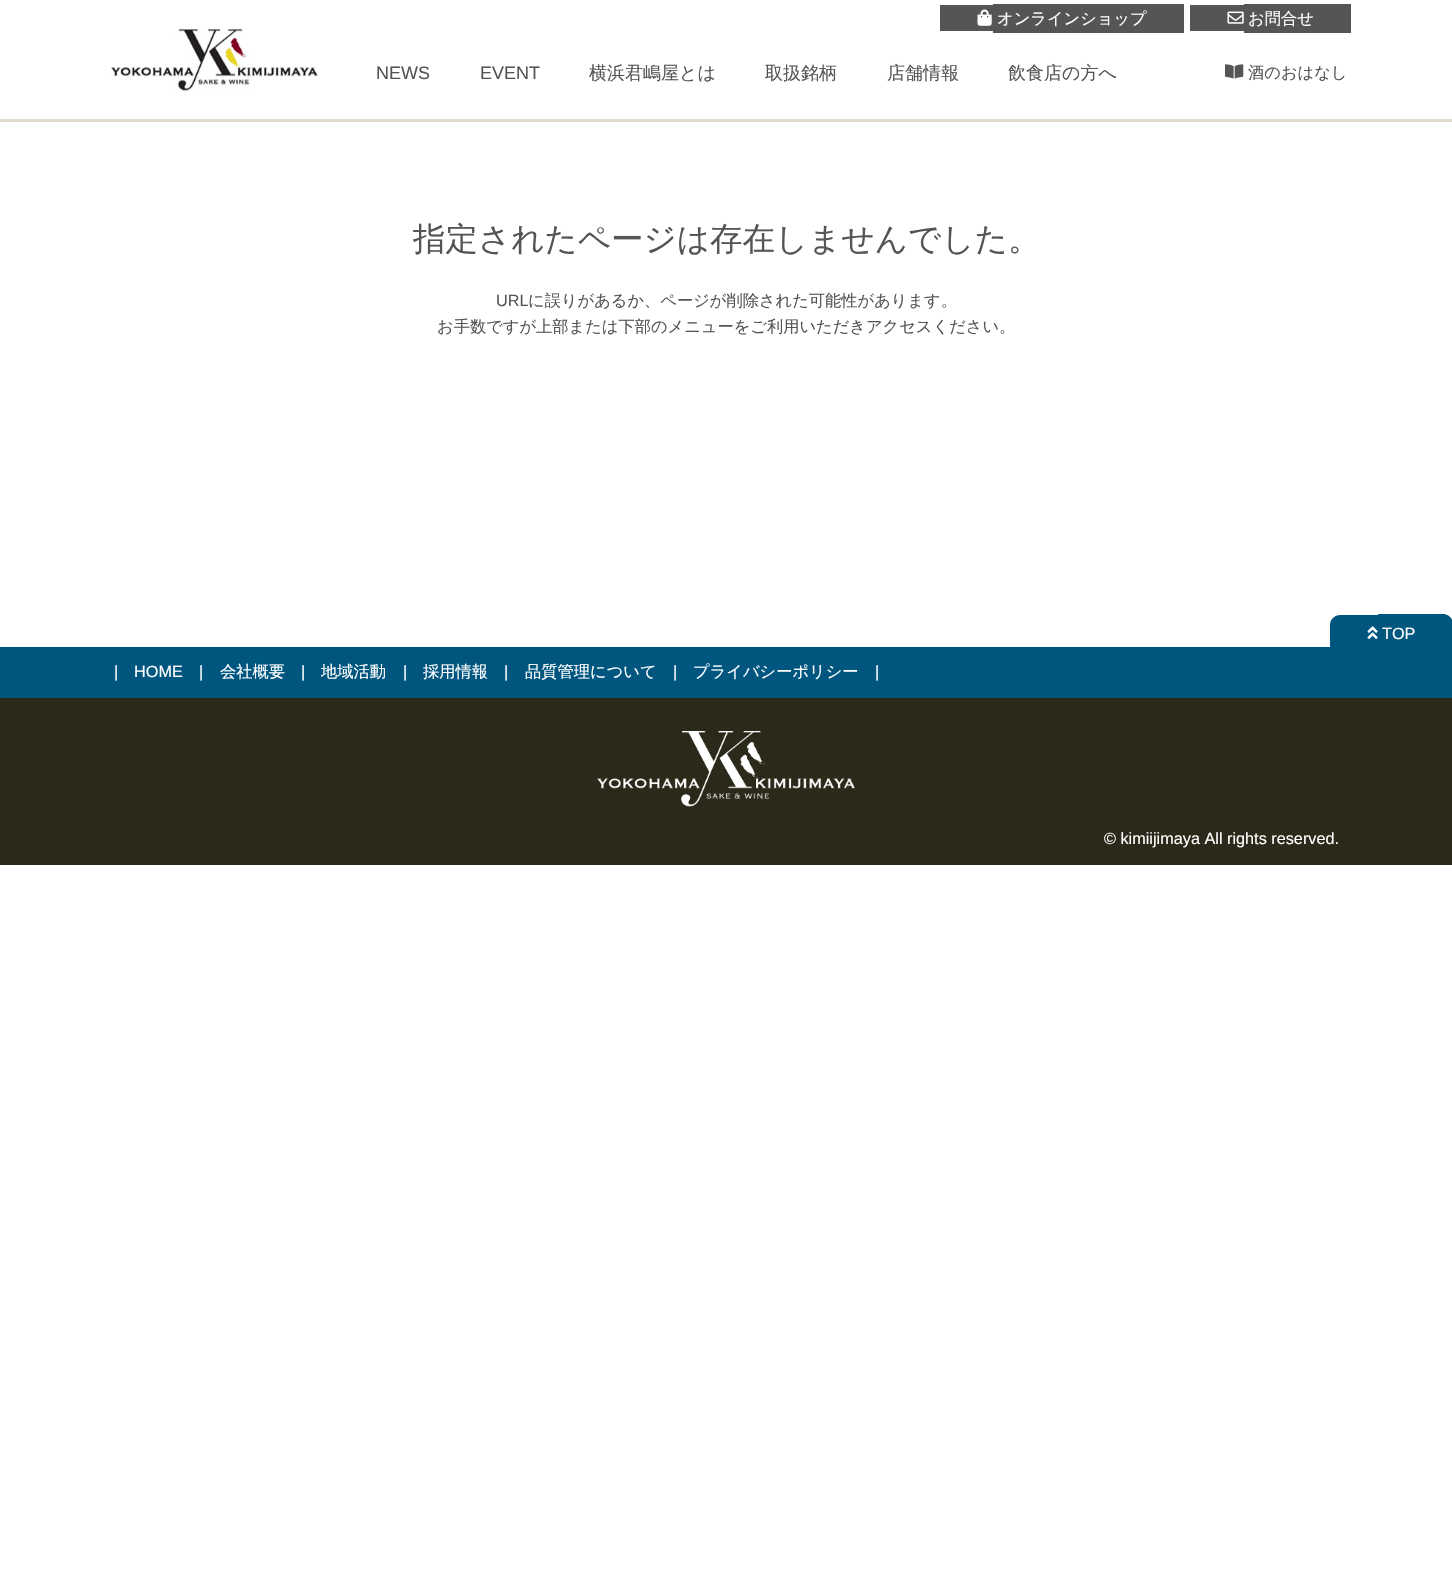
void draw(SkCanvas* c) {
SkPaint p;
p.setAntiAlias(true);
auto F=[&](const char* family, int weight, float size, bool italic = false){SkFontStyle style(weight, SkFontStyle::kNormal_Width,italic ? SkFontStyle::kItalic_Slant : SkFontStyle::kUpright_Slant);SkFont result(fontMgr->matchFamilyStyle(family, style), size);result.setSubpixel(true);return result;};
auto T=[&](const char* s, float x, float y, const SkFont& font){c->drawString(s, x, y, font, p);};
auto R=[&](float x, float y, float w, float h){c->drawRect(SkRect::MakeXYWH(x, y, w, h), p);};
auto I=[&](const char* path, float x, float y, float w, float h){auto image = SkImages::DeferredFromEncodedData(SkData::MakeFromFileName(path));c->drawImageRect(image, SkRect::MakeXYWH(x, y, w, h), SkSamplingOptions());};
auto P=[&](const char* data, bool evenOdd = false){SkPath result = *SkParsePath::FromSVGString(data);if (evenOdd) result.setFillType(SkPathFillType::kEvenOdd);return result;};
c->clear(0xffffffff);
p.setColor(0xffe0dacc);
R(0,119,1452,3);
p.setColor(0xff555555);
R(940,5,53,26);
R(993,4,191,29);
I("1.png",977,9,15,17);
auto f1 = F("WenQuanYi Zen Hei",500,16.25);
p.setColor(0xffffffff);
T("オンラインショップ",997,24,f1);
p.setColor(0xff555555);
R(1190,5,54,26);
R(1244,4,107,29);
I("2.png",1227,11,17,13);
p.setColor(0xffffffff);
T("お問合せ",1248,24,f1);
I("3.png",111,29,207,63);
auto f2 = F("Liberation Sans",400,18);
p.setColor(0xff555555);
T("NEWS",376,79,f2);
T("EVENT",480,79,f2);
auto f3 = F("WenQuanYi Zen Hei",500,18);
T("横浜君嶋屋とは",589,79,f3);
T("取扱銘柄",765,79,f3);
T("店舗情報",887,79,f3);
T("飲食店の方へ",1008,79,f3);
I("4.png",1225,64,19,15);
T("酒のおはなし",1248,78,f1);
auto f4 = F("WenQuanYi Zen Hei",500,32.5);
T("指定されたページは存在しませんでした。",413,250,f4);
auto f5 = F("Liberation Sans",400,16.25);
T("URL",496,306,f5);
T("に誤りがあるか、ページが削除された可能性があります。",528,306,f1);
T("お手数ですが上部または下部のメニューをご利用いただきアクセスください。",437,332,f1);
p.setColor(0xff00567e);
c->drawPath(P("M1340 615h38v39h-48v-29c0-5.5 4.5-10 10-10z"),p);
c->drawPath(P("M1378 614h65c5.5 0 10 4.5 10 10v31h-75z"),p);
I("5.png",1367,626,11,13);
p.setColor(0xffffffff);
T("TOP",1382,639,f5);
p.setColor(0xff2b291a);
R(0,698,1452,167);
p.setColor(0xff01567f);
R(0,647,1452,51);
p.setColor(0xffffffff);
T("|",114,677,f5);
T("HOME",134,677,f5);
T("|",199,677,f5);
T("会社概要",220,677,f1);
T("|",301,677,f5);
T("地域活動",321,677,f1);
T("|",403,677,f5);
T("採用情報",423,677,f1);
T("|",504,677,f5);
T("品質管理について",525,677,f1);
T("|",673,677,f5);
T("プライバシーポリシー",693,677,f1);
T("|",875,677,f5);
I("6.png",597,731,258,76);
T("© kimiijimaya All rights reserved.",1104,844,f5);
}
